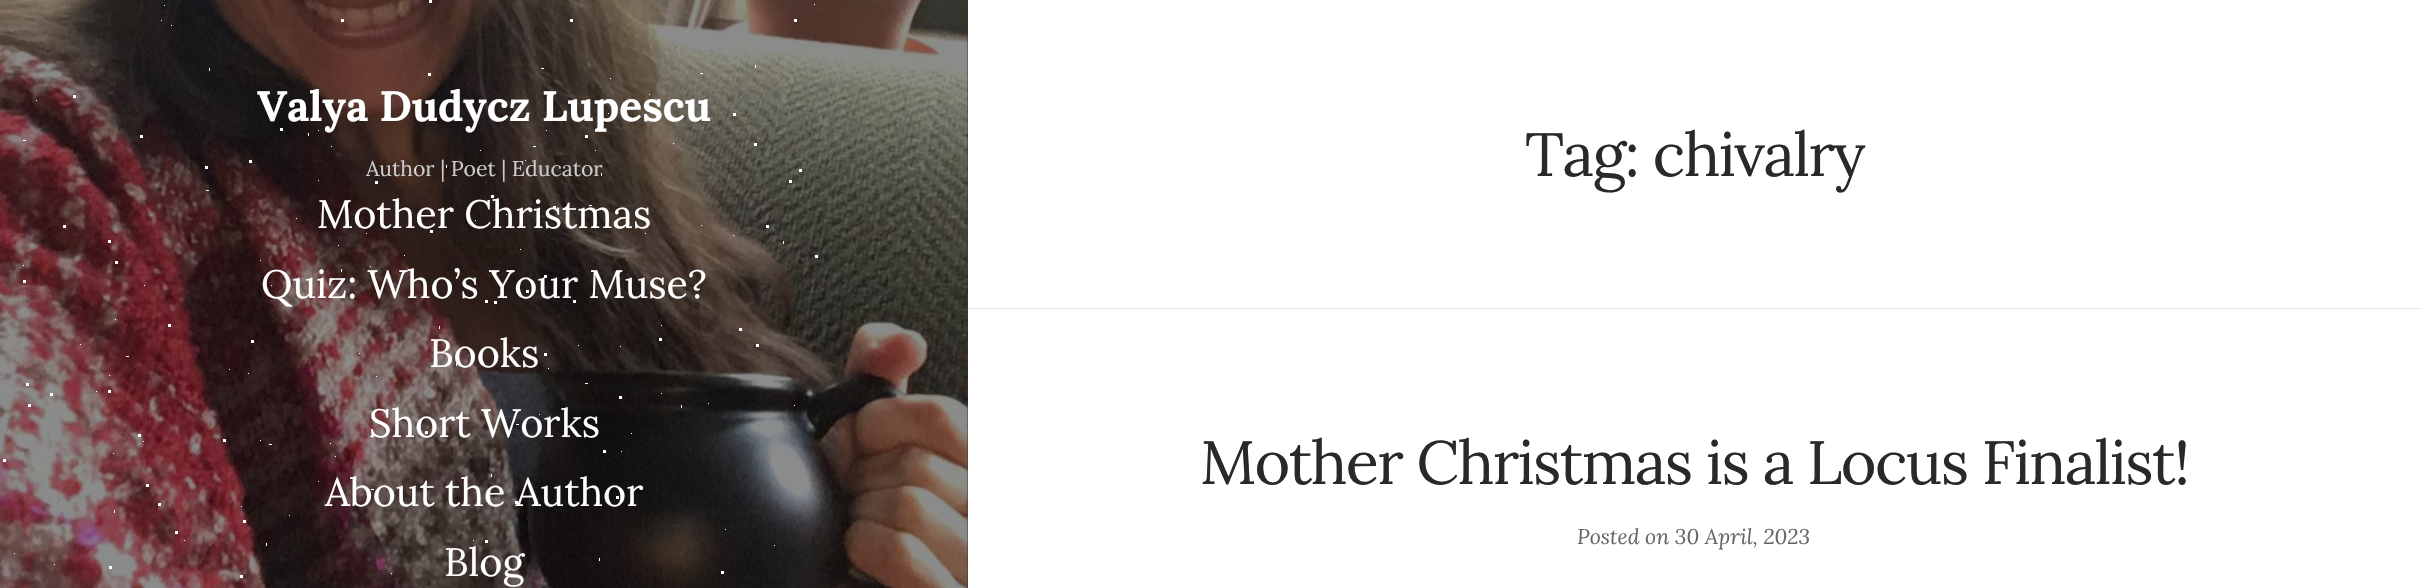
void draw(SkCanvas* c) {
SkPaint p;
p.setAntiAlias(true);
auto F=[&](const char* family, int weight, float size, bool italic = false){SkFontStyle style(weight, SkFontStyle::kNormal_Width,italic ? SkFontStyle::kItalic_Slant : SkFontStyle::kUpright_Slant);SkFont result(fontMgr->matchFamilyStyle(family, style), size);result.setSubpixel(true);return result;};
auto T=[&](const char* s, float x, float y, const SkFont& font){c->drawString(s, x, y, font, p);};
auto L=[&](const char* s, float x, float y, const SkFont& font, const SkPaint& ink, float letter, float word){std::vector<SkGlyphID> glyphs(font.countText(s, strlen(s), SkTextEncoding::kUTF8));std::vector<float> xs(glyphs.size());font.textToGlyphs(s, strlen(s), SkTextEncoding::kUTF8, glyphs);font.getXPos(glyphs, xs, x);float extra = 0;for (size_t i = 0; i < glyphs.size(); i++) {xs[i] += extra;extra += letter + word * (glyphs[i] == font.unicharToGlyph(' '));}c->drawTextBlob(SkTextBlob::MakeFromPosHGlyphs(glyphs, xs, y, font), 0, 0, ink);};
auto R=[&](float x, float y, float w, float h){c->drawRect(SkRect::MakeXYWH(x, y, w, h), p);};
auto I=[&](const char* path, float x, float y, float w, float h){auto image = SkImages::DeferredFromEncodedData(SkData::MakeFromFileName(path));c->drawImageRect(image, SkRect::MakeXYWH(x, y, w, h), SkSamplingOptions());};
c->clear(0xffffffff);
p.setColor(0xff343434);
R(967,0,1,588);
I("1.png",0,0,968,588);
p.setColor(0xffffffff);
R(429,0,3,3);
R(814,4,1,1);
R(164,5,1,1);
R(161,20,1,1);
R(341,19,3,3);
R(570,19,3,3);
R(794,19,3,3);
R(171,25,1,1);
R(755,65,1,3);
R(209,68,1,3);
R(541,68,3,1);
R(428,73,3,3);
R(700,73,3,1);
R(610,78,1,1);
auto f1 = F("Lora",700,42.5);
T("Valya Dudycz Lupescu",257,121,f1);
auto f2 = F("Lora",400,21.25);
p.setColor(0xffcccccc);
T("Author | Poet | Educator",366,176,f2);
auto f3 = F("Lora",400,39.5);
p.setColor(0xffffffff);
T("Mother Christmas",317,228,f3);
T("Quiz: Who’s Your Muse?",261,298,f3);
T("Books",429,367,f3);
T("Short Works",369,437,f3);
T("About the Author",325,506,f3);
T("Blog",444,576,f3);
R(649,94,1,1);
R(73,95,3,3);
R(278,98,1,1);
R(36,100,1,1);
R(608,113,1,1);
R(733,113,3,3);
R(280,128,3,3);
R(318,130,1,1);
R(546,130,1,1);
R(308,133,1,3);
R(140,135,3,3);
R(585,135,3,3);
R(23,140,3,1);
R(673,143,1,1);
R(754,143,3,3);
R(331,146,1,1);
R(533,146,3,1);
R(480,150,1,1);
R(595,150,1,1);
R(249,160,3,3);
R(525,160,1,1);
R(205,166,3,3);
R(446,165,1,3);
R(415,169,1,1);
R(799,169,3,3);
R(601,173,1,3);
R(318,180,1,1);
R(375,181,3,3);
R(789,180,3,3);
R(206,190,3,1);
R(491,195,3,3);
R(589,205,3,1);
R(553,206,3,3);
R(506,214,1,1);
R(296,218,1,1);
R(475,220,1,1);
R(63,225,3,3);
R(701,225,1,1);
R(766,225,3,3);
R(430,230,3,3);
R(366,233,1,1);
R(645,233,1,1);
R(733,235,1,1);
R(108,240,3,3);
R(783,241,1,3);
R(338,245,1,1);
R(520,249,1,1);
R(404,255,1,1);
R(815,255,3,3);
R(260,260,1,1);
R(115,261,3,3);
R(23,265,1,1);
R(370,266,1,1);
R(341,269,1,3);
R(544,275,3,3);
R(23,280,3,3);
R(144,285,1,1);
R(271,285,1,1);
R(526,290,3,3);
R(485,300,3,3);
R(494,301,3,3);
R(573,300,3,3);
R(115,319,1,1);
R(168,324,3,3);
R(661,325,1,1);
R(439,326,1,3);
R(739,328,3,3);
R(659,338,3,3);
R(251,340,3,3);
R(80,344,1,1);
R(578,345,1,1);
R(756,344,3,3);
R(620,346,1,1);
R(359,353,1,1);
R(544,353,3,3);
R(126,356,3,1);
R(456,363,1,3);
R(548,368,1,1);
R(229,369,1,1);
R(248,373,1,1);
R(109,375,1,1);
R(376,376,1,1);
R(26,383,3,3);
R(585,383,3,1);
R(96,391,1,1);
R(108,390,3,3);
R(50,393,3,3);
R(661,393,1,1);
R(619,396,3,3);
R(708,403,1,1);
R(28,404,3,3);
R(681,405,1,3);
R(794,405,1,1);
R(539,414,1,1);
R(516,424,3,1);
R(425,431,3,3);
R(631,433,1,1);
R(138,434,3,3);
R(370,436,3,1);
R(223,439,3,3);
R(260,440,1,1);
R(143,441,1,1);
R(330,443,1,1);
R(269,444,3,1);
R(603,450,3,3);
R(621,451,1,1);
R(113,453,1,1);
R(335,456,1,1);
R(3,459,3,3);
R(491,474,1,3);
R(318,481,1,1);
R(146,484,3,3);
R(371,489,3,1);
R(616,496,3,3);
R(515,501,3,3);
R(158,503,3,3);
R(241,506,1,1);
R(114,510,1,3);
R(289,515,1,1);
R(243,520,3,3);
R(725,529,1,1);
R(175,531,3,3);
R(184,540,1,1);
R(473,540,1,1);
R(485,540,3,3);
R(266,543,1,3);
R(774,545,1,1);
R(14,553,1,1);
R(599,558,1,3);
R(54,564,1,1);
R(109,566,3,3);
R(391,573,1,1);
R(721,571,3,3);
R(240,575,3,3);
p.setColor(0xffe5e5e5);
R(968,308,1452,1);
auto f4 = F("Lora",400,61.1);
p.setColor(0xff292929);
L("Tag: chivalry",1525,176,f4,p,-1.6,0);
L("Mother Christmas is a Locus Finalist!",1200,484,f4,p,-1.6,0);
auto f5 = F("Lora",400,21.25,true);
p.setColor(0xff676767);
T("Posted on 30 April, 2023",1577,544,f5);
}
